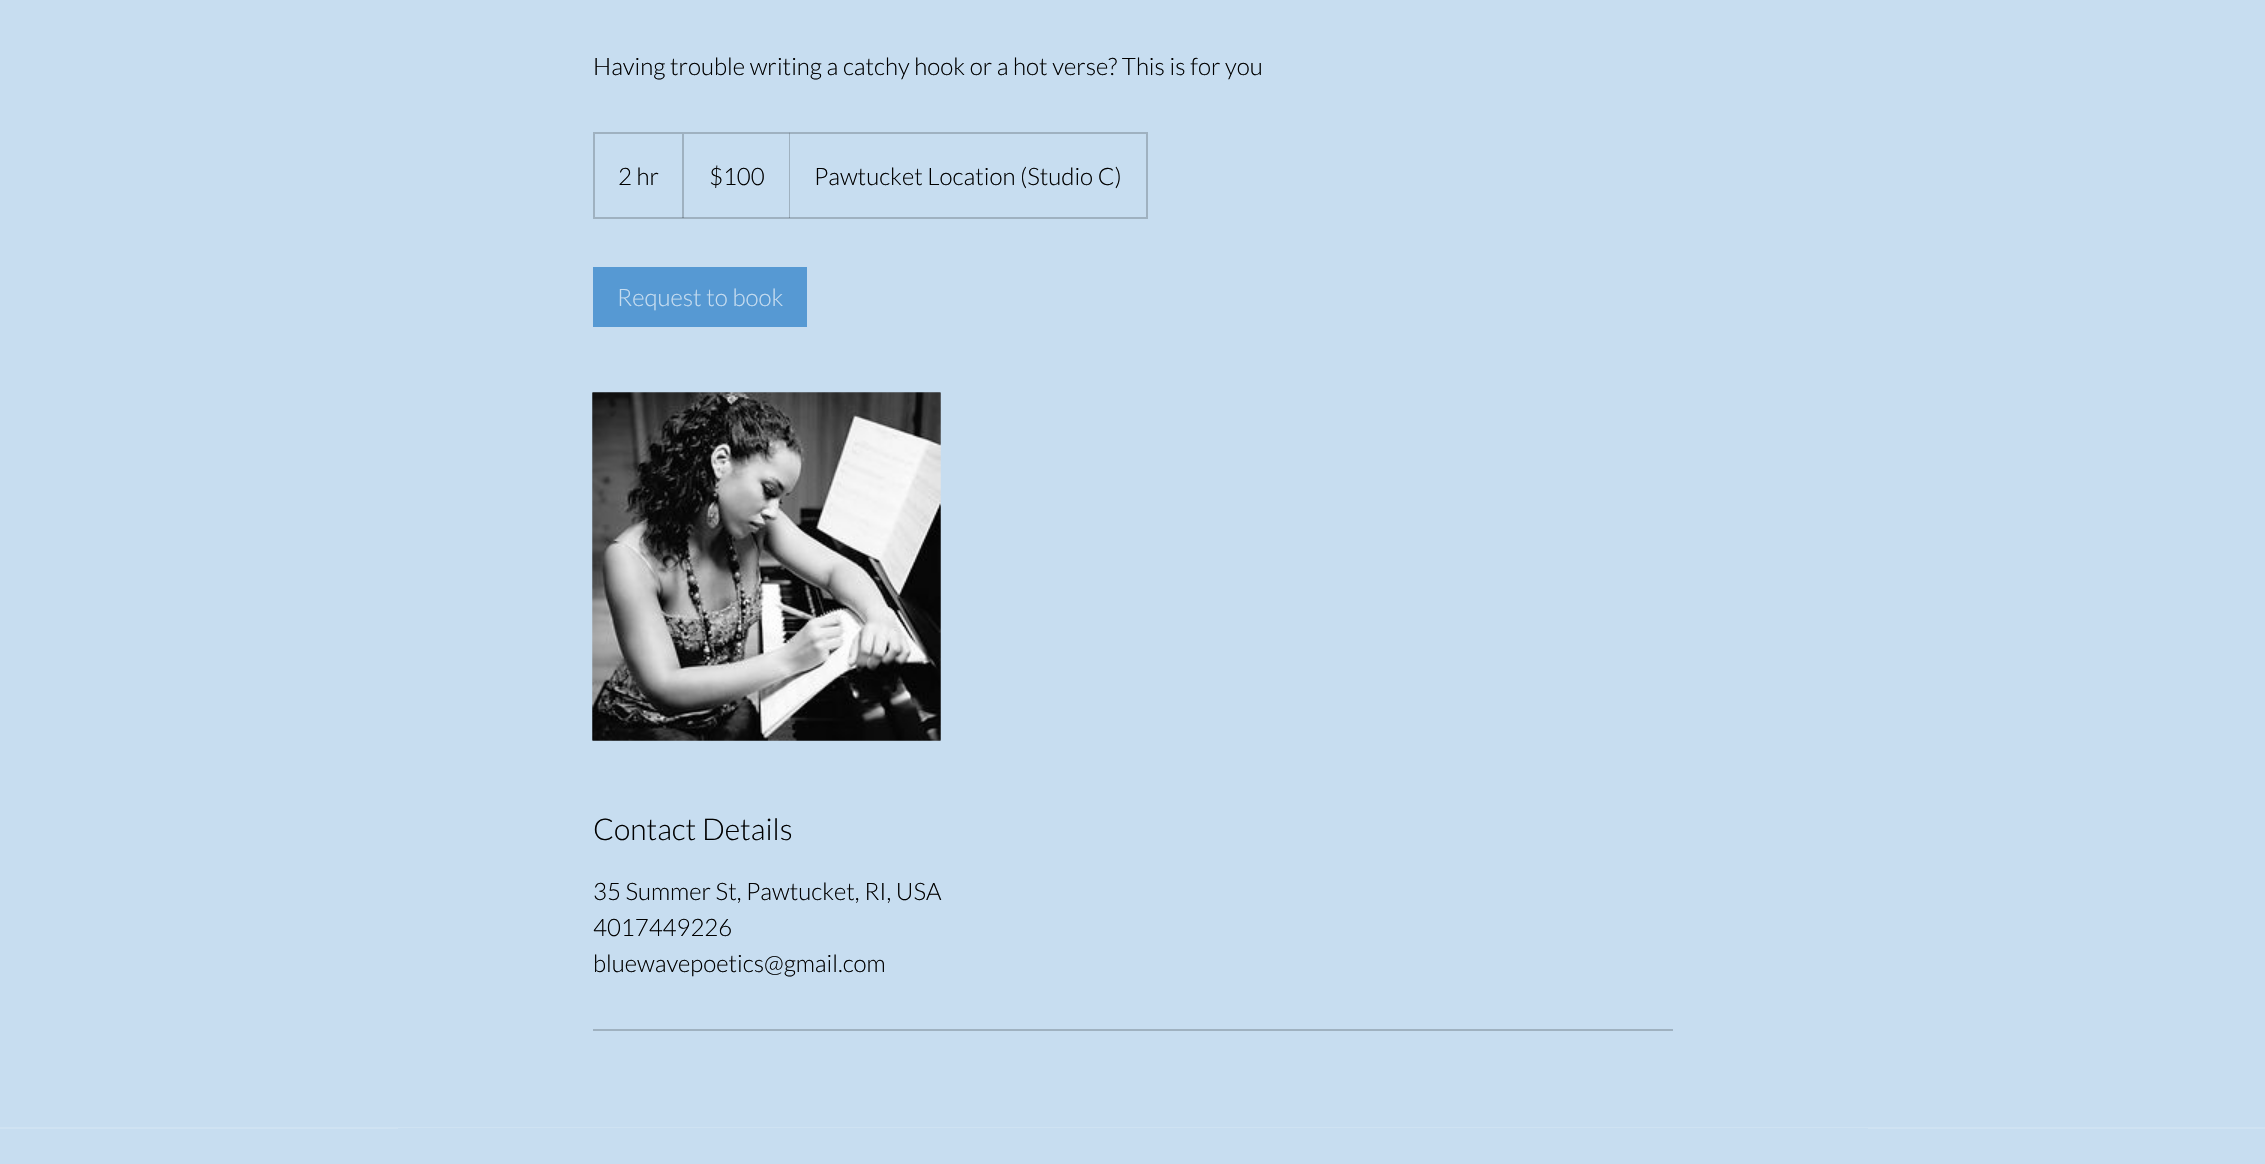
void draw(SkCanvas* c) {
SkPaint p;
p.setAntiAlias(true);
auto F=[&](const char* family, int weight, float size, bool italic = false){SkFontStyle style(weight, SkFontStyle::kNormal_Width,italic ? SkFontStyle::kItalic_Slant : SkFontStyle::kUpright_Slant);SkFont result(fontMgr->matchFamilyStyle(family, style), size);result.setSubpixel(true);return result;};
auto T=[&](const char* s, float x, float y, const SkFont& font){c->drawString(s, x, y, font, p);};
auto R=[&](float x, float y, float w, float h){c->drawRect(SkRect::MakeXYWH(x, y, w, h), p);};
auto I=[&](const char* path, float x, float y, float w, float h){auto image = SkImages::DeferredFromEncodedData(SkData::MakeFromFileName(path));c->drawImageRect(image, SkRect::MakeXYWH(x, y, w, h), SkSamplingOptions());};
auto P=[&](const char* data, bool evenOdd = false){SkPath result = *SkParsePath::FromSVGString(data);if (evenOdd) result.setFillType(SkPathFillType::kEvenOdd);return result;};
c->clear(0xffc7ddf0);
auto f1 = F("Lato",300,24);
p.setColor(0xff000000);
T("Having trouble writing a catchy hook or a hot verse? This is for you",593,75,f1);
p.setStroke(true);
p.setStrokeWidth(2);
p.setColor(0xff9fb1c0);
c->drawRect(SkRect::MakeXYWH(594,133,553,85),p);
p.setStroke(false);
p.setColor(0xff000000);
T("2 hr",618,185,f1);
c->save();
c->clipRect(SkRect::MakeXYWH(594,134,552,84));
p.setColor(0x33000000);
c->drawPath(P("M682 218v-86l2 2v84z"),p);
c->restore();
p.setColor(0xff000000);
T("$100",709,185,f1);
p.setColor(0x33000000);
c->drawPath(P("M789 218v-86l1 2v84z"),p);
p.setColor(0xff000000);
T("Pawtucket Location (Studio C)",814,185,f1);
p.setColor(0xff5699d3);
R(593,267,214,60);
p.setColor(0xffc7ddf0);
T("Request to book",617,306,f1);
I("1.png",592,392,349,349);
I("2.png",592,392,349,349);
auto f2 = F("Lato",300,30);
p.setColor(0xff000000);
T("Contact Details",593,840,f2);
T("35 Summer St, Pawtucket, RI, USA",593,900,f1);
T("4017449226",593,936,f1);
T("bluewavepoetics@gmail.com",593,972,f1);
p.setColor(0xff9fb1c0);
R(593,1029,1080,2);
p.setColor(0xffcfe2f2);
R(0,1127,2265,2);
p.setColor(0xffc7ddf0);
R(398,1128,1470,1);
}
